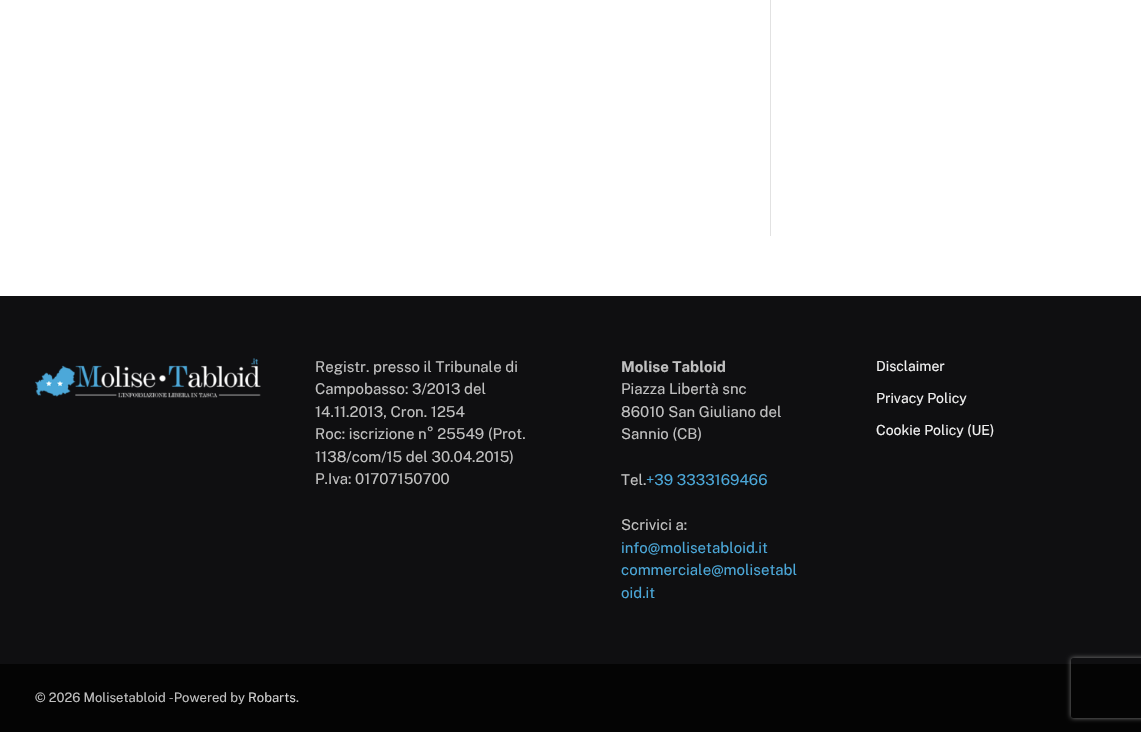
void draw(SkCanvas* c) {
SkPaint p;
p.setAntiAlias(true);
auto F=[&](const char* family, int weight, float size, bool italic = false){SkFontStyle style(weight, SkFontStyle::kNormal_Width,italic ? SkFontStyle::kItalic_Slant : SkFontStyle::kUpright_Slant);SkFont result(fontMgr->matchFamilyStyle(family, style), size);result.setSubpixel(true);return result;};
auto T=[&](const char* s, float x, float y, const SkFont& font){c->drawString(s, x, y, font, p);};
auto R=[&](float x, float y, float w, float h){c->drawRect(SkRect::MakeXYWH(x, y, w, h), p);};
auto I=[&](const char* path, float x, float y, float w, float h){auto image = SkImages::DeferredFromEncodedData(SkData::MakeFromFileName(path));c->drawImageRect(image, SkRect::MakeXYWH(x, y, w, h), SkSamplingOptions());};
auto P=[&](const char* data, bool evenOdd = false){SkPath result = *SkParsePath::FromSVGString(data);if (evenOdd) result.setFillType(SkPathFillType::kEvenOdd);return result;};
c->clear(0xffffffff);
p.setColor(0xffe2e2e2);
R(770,0,1,236);
p.setColor(0xff0f0f11);
R(0,296,1141,368);
I("1.png",35,358,226,40);
auto f1 = F("Public Sans",400,15);
p.setColor(0xffc0c0c0);
T("Registr. presso il Tribunale di",315,372,f1);
T("Campobasso: 3/2013 del",315,394,f1);
T("14.11.2013, Cron. 1254",315,417,f1);
T("Roc: iscrizione n° 25549 (Prot.",315,439,f1);
T("1138/com/15 del 30.04.2015)",315,462,f1);
T("P.Iva: 01707150700",315,484,f1);
auto f2 = F("Public Sans",700,15);
T("Molise Tabloid",621,372,f2);
T("Piazza Libertà snc",621,394,f1);
T("86010 San Giuliano del",621,417,f1);
T("Sannio (CB)",621,439,f1);
T("Tel.",621,485,f1);
p.setColor(0xff4ba7d8);
T("+39 3333169466",646,485,f1);
p.setColor(0xffc0c0c0);
T("Scrivici a:",621,530,f1);
p.setColor(0xff4ba7d8);
T("info@molisetabloid.it",621,553,f1);
T("commerciale@molisetabl",621,575,f1);
T("oid.it",621,598,f1);
auto f3 = F("Public Sans",400,14);
p.setColor(0xfff0f0f0);
T("Disclaimer",876,371,f3);
T("Privacy Policy",876,403,f3);
T("Cookie Policy (UE)",876,435,f3);
p.setColor(0xff040404);
R(0,664,1141,68);
auto f4 = F("Public Sans",400,13);
p.setColor(0xffc0c0c0);
T("© 2026 Molisetabloid -Powered by",35,702,f4);
p.setColor(0xffd1d1d1);
T("Robarts",248,702,f4);
p.setColor(0xffc0c0c0);
T(".",296,702,f4);
c->save();
c->clipPath(P("M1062 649h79v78h-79zm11 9h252c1 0 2 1 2 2v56c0 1-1 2-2 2h-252c-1 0-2-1-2-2v-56c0-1 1-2 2-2z",true),true);
p.setColor(0xff808080);
p.setMaskFilter(SkMaskFilter::MakeBlur(kNormal_SkBlurStyle, 2.5));
c->drawRoundRect(SkRect::MakeXYWH(1071,658,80,60),2,2,p);
p.setMaskFilter(nullptr);
c->restore();
}
